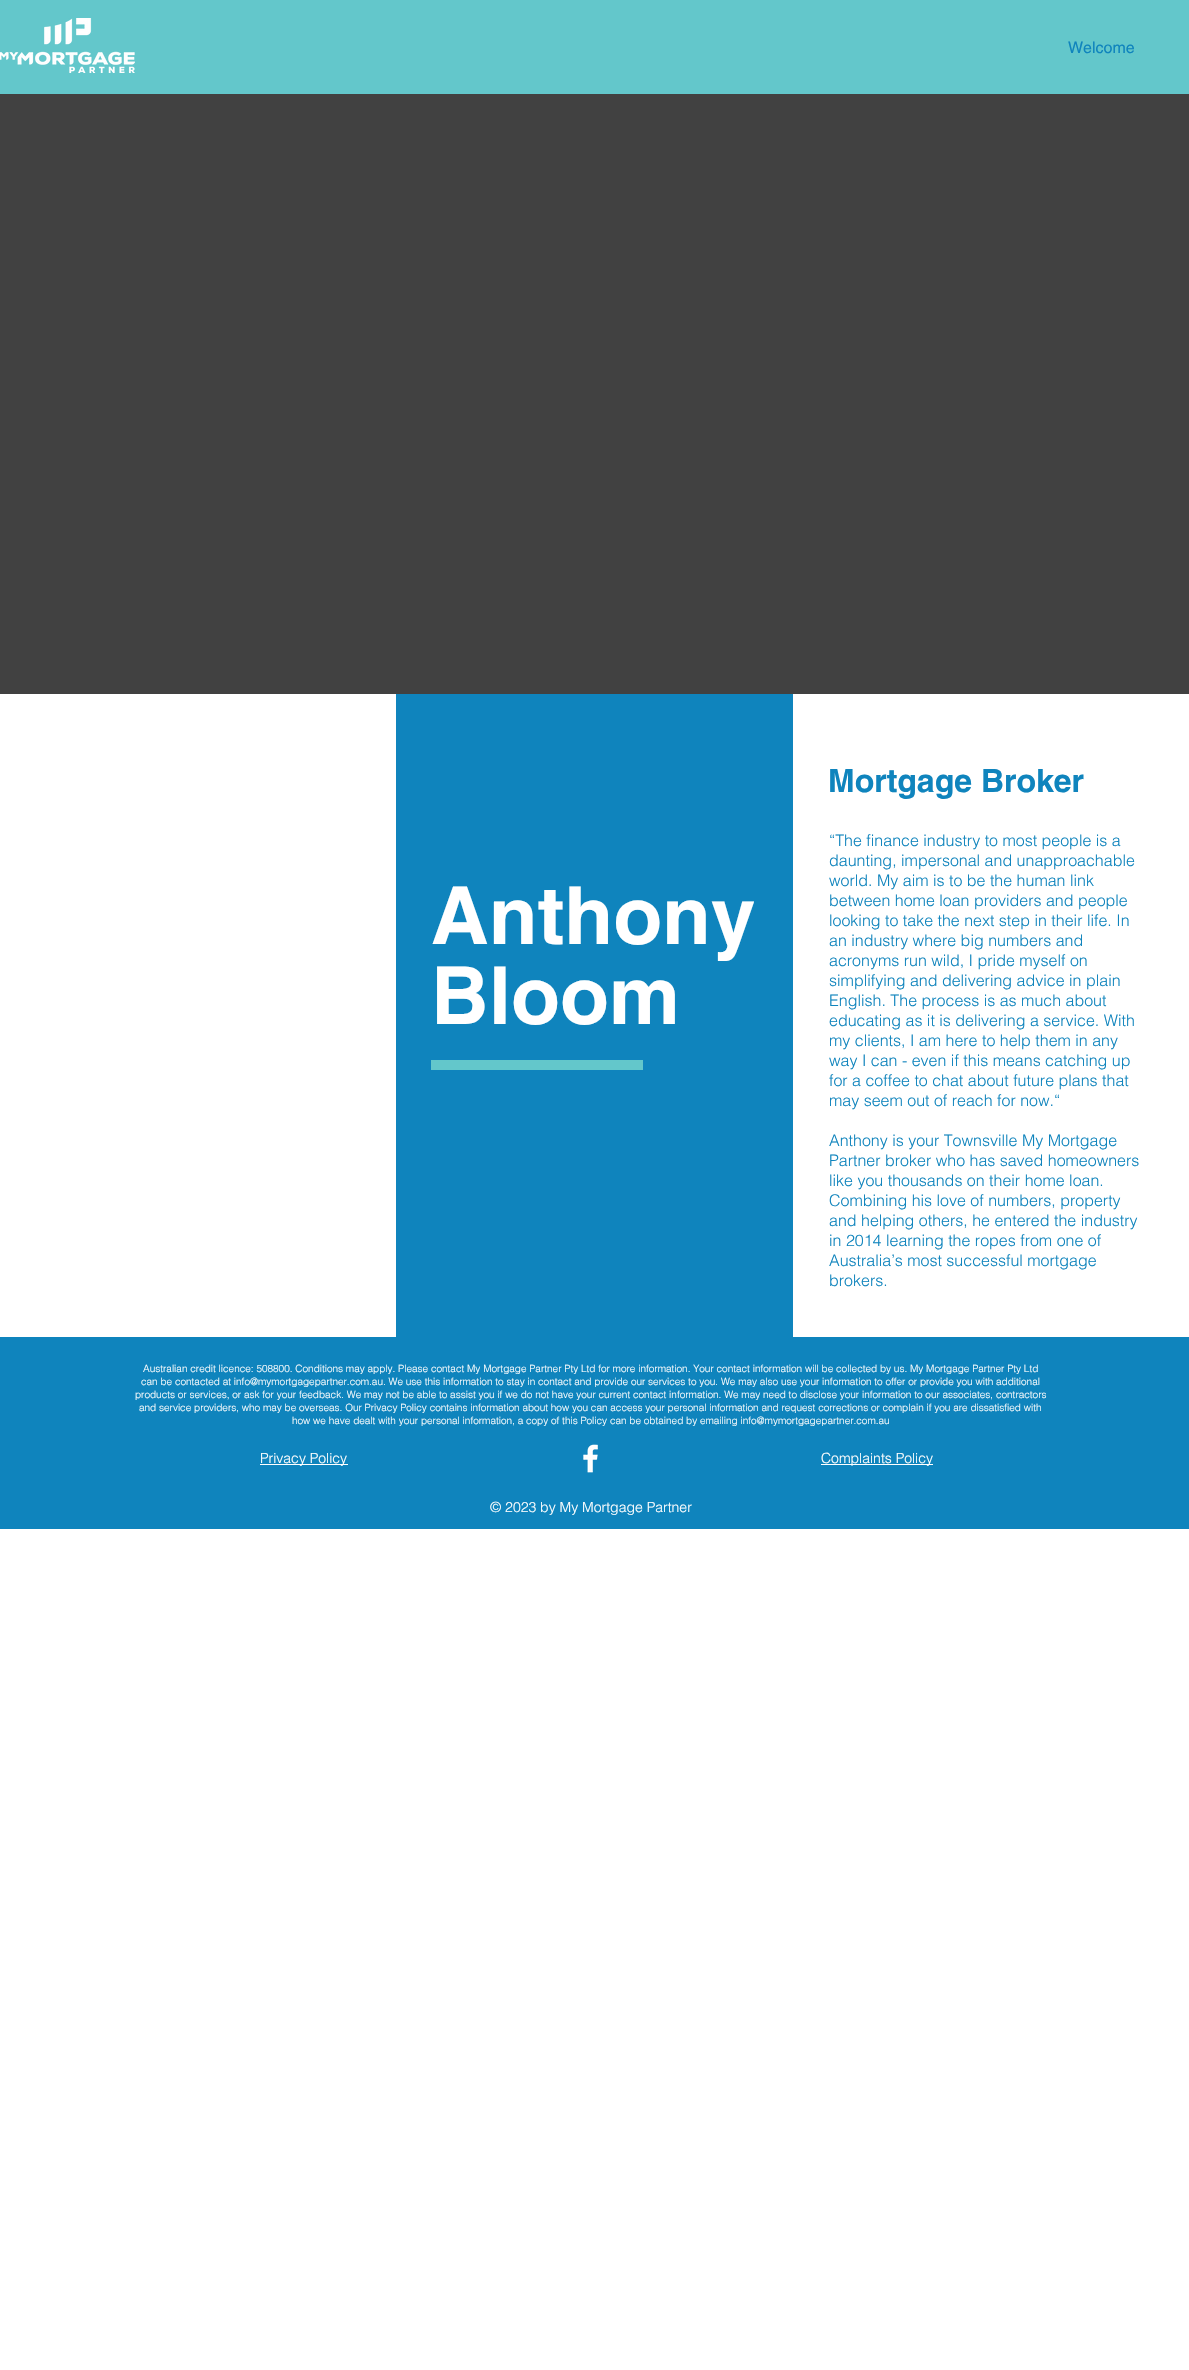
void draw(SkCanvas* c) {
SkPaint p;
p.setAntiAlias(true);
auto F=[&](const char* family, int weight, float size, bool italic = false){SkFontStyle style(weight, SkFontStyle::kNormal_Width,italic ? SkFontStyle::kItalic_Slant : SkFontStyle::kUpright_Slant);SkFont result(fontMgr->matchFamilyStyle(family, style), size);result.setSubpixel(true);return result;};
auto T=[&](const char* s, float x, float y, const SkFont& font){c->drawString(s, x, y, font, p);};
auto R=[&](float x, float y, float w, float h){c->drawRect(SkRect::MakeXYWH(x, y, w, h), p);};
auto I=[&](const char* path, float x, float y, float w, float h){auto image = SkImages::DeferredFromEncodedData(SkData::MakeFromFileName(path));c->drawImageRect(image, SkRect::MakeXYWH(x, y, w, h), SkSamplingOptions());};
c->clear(0xffffffff);
p.setColor(0xff63c7cb);
R(0,0,1189,94);
I("1.png",0,18,135,55);
auto f1 = F("helvetica",400,16);
p.setColor(0xff0f84bd);
T("Welcome",1068,53,f1);
p.setColor(0xff414141);
R(0,94,1189,600);
p.setColor(0xff0f84bd);
R(396,694,397,643);
auto f2 = F("helvetica",700,80);
p.setColor(0xffffffff);
T("Anthony",431,944,f2);
T("Bloom",431,1024,f2);
p.setColor(0xff63c7cb);
R(431,1060,212,10);
auto f3 = F("helvetica",700,32);
p.setColor(0xff0f84bd);
T("Mortgage Broker",828,792,f3);
auto f4 = F("helvetica",300,16);
T("“The finance industry to most people is a",829,846,f4);
T("daunting, impersonal and unapproachable",829,866,f4);
T("world. My aim is to be the human link",829,886,f4);
T("between home loan providers and people",829,906,f4);
T("looking to take the next step in their life. In",829,926,f4);
T("an industry where big numbers and",829,946,f4);
T("acronyms run wild, I pride myself on",829,966,f4);
T("simplifying and delivering advice in plain",829,986,f4);
T("English. The process is as much about",829,1006,f4);
T("educating as it is delivering a service. With",829,1026,f4);
T("my clients, I am here to help them in any",829,1046,f4);
T("way I can - even if this means catching up",829,1066,f4);
T("for a coffee to chat about future plans that",829,1086,f4);
T("may seem out of reach for now.“",829,1106,f4);
T("Anthony is your Townsville My Mortgage",829,1146,f4);
T("Partner broker who has saved homeowners",829,1166,f4);
T("like you thousands on their home loan.",829,1186,f4);
T("Combining his love of numbers, property",829,1206,f4);
T("and helping others, he entered the industry",829,1226,f4);
T("in 2014 learning the ropes from one of",829,1246,f4);
T("Australia’s most successful mortgage",829,1266,f4);
T("brokers.",829,1286,f4);
R(0,1337,1189,192);
auto f5 = F("helvetica",300,10);
p.setColor(0xffffffff);
T("Australian credit licence: 508800. Conditions may apply. Please contact My Mortgage Partner Pty Ltd for more information. Your contact information will be collected by us. My Mortgage Partner Pty Ltd",143,1372,f5);
T("can be contacted at info@mymortgagepartner.com.au. We use this information to stay in contact and provide our services to you. We may also use your information to offer or provide you with additional",141,1385,f5);
T("products or services, or ask for your feedback. We may not be able to assist you if we do not have your current contact information. We may need to disclose your information to our associates, contractors",135,1398,f5);
T("and service providers, who may be overseas. Our Privacy Policy contains information about how you can access your personal information and request corrections or complain if you are dissatisfied with",139,1411,f5);
T("how we have dealt with your personal information, a copy of this Policy can be obtained by emailing info@mymortgagepartner.com.au",292,1424,f5);
R(260,1464,88,1);
auto f6 = F("helvetica",300,14);
T("Privacy Policy",260,1463,f6);
I("2.png",583,1444,15,29);
R(821,1464,112,1);
T("Complaints Policy",821,1463,f6);
T("© 2023 by My Mortgage Partner",490,1512,f6);
}
